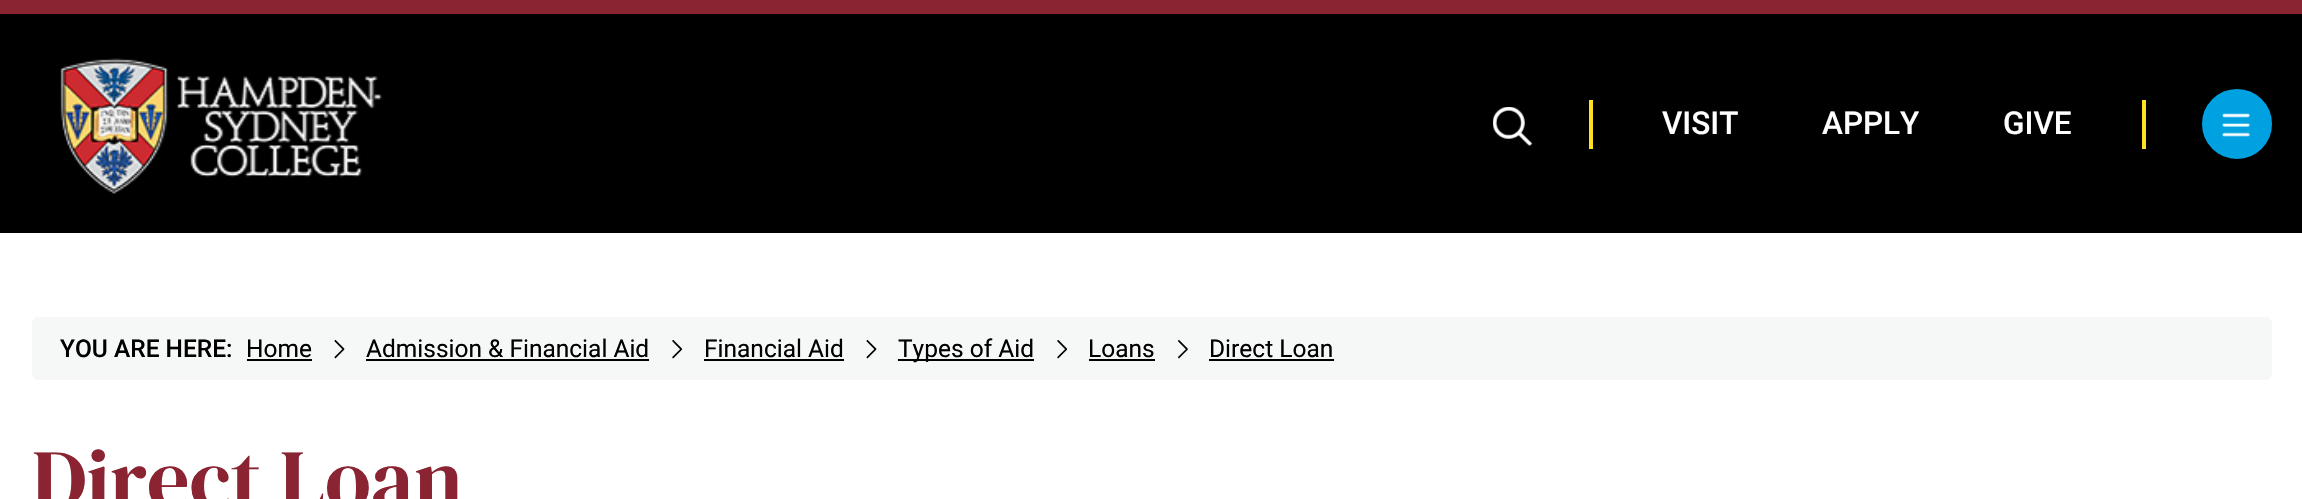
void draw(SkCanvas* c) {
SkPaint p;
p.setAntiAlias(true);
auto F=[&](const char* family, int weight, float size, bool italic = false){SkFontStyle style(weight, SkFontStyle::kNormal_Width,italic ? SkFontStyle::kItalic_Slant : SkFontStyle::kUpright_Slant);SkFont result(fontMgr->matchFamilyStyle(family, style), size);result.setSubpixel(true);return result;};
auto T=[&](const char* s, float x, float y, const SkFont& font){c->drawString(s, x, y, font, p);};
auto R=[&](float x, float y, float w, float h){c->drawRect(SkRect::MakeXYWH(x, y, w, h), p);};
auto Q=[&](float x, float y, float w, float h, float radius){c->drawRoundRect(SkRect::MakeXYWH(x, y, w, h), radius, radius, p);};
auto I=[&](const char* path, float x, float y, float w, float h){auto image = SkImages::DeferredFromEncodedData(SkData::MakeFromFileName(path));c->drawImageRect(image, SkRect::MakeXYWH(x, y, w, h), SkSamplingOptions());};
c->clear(0xffffffff);
p.setColor(0xff000000);
R(0,14,2302,219);
p.setColor(0xff8a2432);
R(0,0,2302,14);
I("1.png",60,58,322,136);
I("2.png",1493,107,40,39);
p.setColor(0xfffee122);
R(2142,100,4,49);
R(1589,100,4,49);
auto f1 = F("Roboto",500,31.5);
p.setColor(0xffffffff);
T("VISIT",1662,134,f1);
T("APPLY",1822,134,f1);
T("GIVE",2003,134,f1);
p.setColor(0xff00a1e0);
c->drawCircle(2237,124,33,p);
p.setStroke(true);
p.setStrokeWidth(4);
c->drawCircle(2237,124,33,p);
I("3.png",2222,113,28,24);
p.setStroke(false);
p.setColor(0xfff6f7f7);
Q(32,317,2240,63,7);
auto f2 = F("Roboto",500,24.5);
p.setColor(0xff000000);
T("YOU ARE HERE:",60,357,f2);
auto f3 = F("Roboto",400,24.5);
T("Home",246,357,f3);
R(247,359,65,2);
I("4.png",334,340,11,19);
T("Admission & Financial Aid",366,357,f3);
R(366,359,283,2);
I("5.png",672,340,11,19);
T("Financial Aid",704,357,f3);
R(704,359,140,2);
I("4.png",866,340,11,19);
R(898,359,136,2);
T("Types of Aid",898,357,f3);
I("5.png",1057,340,11,19);
T("Loans",1088,357,f3);
R(1089,359,66,2);
I("6.png",1178,340,10,19);
T("Direct Loan",1209,357,f3);
R(1209,359,125,2);
auto f4 = F("DM Serif Display",400,84);
p.setColor(0xff8a2432);
T("Direct Loan",32,508,f4);
}
